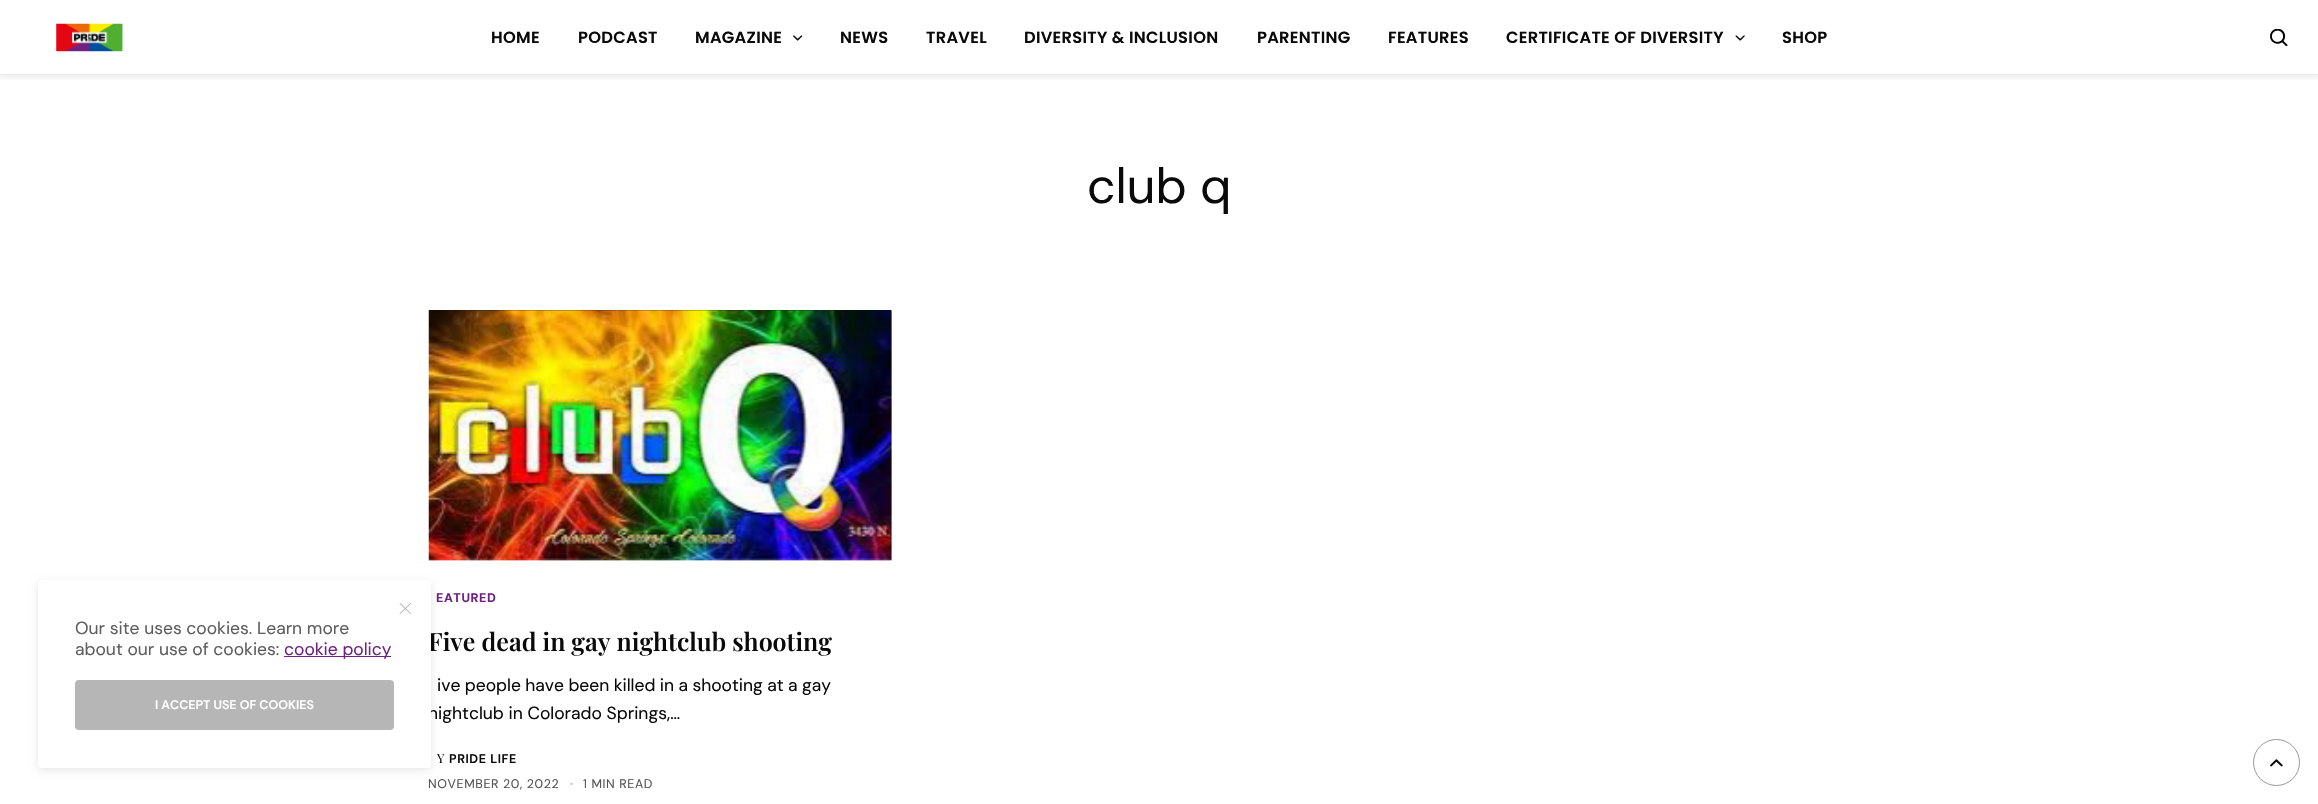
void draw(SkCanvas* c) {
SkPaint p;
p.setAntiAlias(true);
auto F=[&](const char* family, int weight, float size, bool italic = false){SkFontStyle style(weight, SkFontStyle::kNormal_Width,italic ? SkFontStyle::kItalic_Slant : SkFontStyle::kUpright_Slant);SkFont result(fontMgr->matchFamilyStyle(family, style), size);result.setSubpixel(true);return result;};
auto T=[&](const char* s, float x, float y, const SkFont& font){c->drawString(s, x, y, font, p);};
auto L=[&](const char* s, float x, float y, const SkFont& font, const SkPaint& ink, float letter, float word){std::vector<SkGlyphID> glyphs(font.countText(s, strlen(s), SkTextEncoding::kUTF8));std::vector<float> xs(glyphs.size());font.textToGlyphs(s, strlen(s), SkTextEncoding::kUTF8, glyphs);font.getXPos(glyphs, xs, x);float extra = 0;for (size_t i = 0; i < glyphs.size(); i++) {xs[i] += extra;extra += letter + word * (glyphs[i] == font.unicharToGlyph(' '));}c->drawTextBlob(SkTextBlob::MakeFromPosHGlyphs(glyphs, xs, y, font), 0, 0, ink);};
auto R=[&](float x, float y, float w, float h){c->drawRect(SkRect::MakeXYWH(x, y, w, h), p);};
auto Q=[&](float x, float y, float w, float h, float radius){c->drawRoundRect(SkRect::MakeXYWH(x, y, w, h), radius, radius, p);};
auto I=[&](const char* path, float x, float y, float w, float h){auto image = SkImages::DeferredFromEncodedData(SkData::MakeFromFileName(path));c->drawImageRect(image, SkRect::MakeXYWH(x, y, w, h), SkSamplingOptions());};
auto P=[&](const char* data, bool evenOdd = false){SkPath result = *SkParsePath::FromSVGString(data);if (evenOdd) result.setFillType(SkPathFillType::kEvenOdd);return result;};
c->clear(0xffffffff);
c->save();
c->clipRect(SkRect::MakeXYWH(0,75,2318,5));
p.setColor(0x12000000);
p.setMaskFilter(SkMaskFilter::MakeBlur(kNormal_SkBlurStyle, 3));
c->drawRect(SkRect::MakeXYWH(0,3,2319,75),p);
p.setMaskFilter(nullptr);
c->restore();
I("1.png",56,23,67,29);
auto f1 = F("Poppins",600,16.25);
p.setColor(0xff0a0a0a);
L("HOME",491,43,f1,p,.3,0);
L("PODCAST",578,43,f1,p,.3,0);
L("MAGAZINE",695,43,f1,p,.3,0);
I("2.png",793,35,10,6);
L("NEWS",840,43,f1,p,.3,0);
L("TRAVEL",926,43,f1,p,.3,0);
L("DIVERSITY & INCLUSION",1024,43,f1,p,.3,0);
L("PARENTING",1257,43,f1,p,.3,0);
L("FEATURES",1388,43,f1,p,.3,0);
L("CERTIFICATE OF DIVERSITY",1506,43,f1,p,.3,0);
I("3.png",1735,35,10,6);
L("SHOP",1782,43,f1,p,.3,0);
I("4.png",2270,29,18,17);
p.setColor(0xffebebeb);
R(0,74,2318,1);
p.setColor(0x1a000000);
p.setMaskFilter(SkMaskFilter::MakeBlur(kNormal_SkBlurStyle, 4.5));
c->drawRoundRect(SkRect::MakeXYWH(38,583,393,187),4,4,p);
p.setMaskFilter(nullptr);
auto f2 = F("Playfair Display",600,25);
p.setColor(0xff0a0a0a);
T("Five dead in gay nightclub shooting",428,651,f2);
auto f3 = F("DM Sans",400,17.5);
T("nightclub in Colorado Springs,…",428,719,f3);
p.setColor(0xffffffff);
Q(38,580,393,188,4);
p.setColor(0xffa3a3a3);
c->drawPath(P("M400 603l11 10.5l-.5 .5l-11-10.5z"),p);
c->drawPath(P("M399.5 613.5l11-10.5l.5 .5l-11 10.5z"),p);
p.setColor(0xff5e5e5e);
T("Our site uses cookies. Learn more",75,634,f3);
T("about our use of cookies:",75,655,f3);
p.setColor(0xff702283);
R(284,656,107,1);
T("cookie policy",284,655,f3);
p.setColor(0xffb6b6b6);
Q(75,680,319,50,4);
auto f4 = F("DM Sans",600,12.5);
p.setColor(0xffffffff);
T("I ACCEPT USE OF COOKIES",155,709,f4);
auto f5 = F("DM Sans",400,50);
p.setColor(0xff0a0a0a);
T("club q",1087,203,f5);
R(429,310,462,250);
I("5.png",428,310,464,251);
auto f6 = F("DM Sans",700,12.5);
p.setColor(0xff702283);
L("EATURED",436,602,f6,p,.6,0);
p.setColor(0xff0a0a0a);
L("ive people have been killed in a shooting at a gay",437,691,f3,p,0,-.25);
auto f7 = F("Playfair Display",400,12.5);
L("Y",437,763,f7,p,.6,0);
L("PRIDE LIFE",449,763,f4,p,.6,0);
auto f8 = F("DM Sans",400,12.5);
p.setColor(0xff545454);
L("NOVEMBER 20, 2022",428,788,f8,p,.6,0);
p.setColor(0xffb5b5b5);
L("·",570,788,f4,p,.6,0);
p.setColor(0xff545454);
L("1 MIN READ",583,788,f8,p,.6,0);
p.setStroke(true);
p.setStrokeWidth(1);
p.setColor(0xff999999);
c->drawCircle(2276.5,762.5,23,p);
I("6.png",2270,759,13,8);
}
